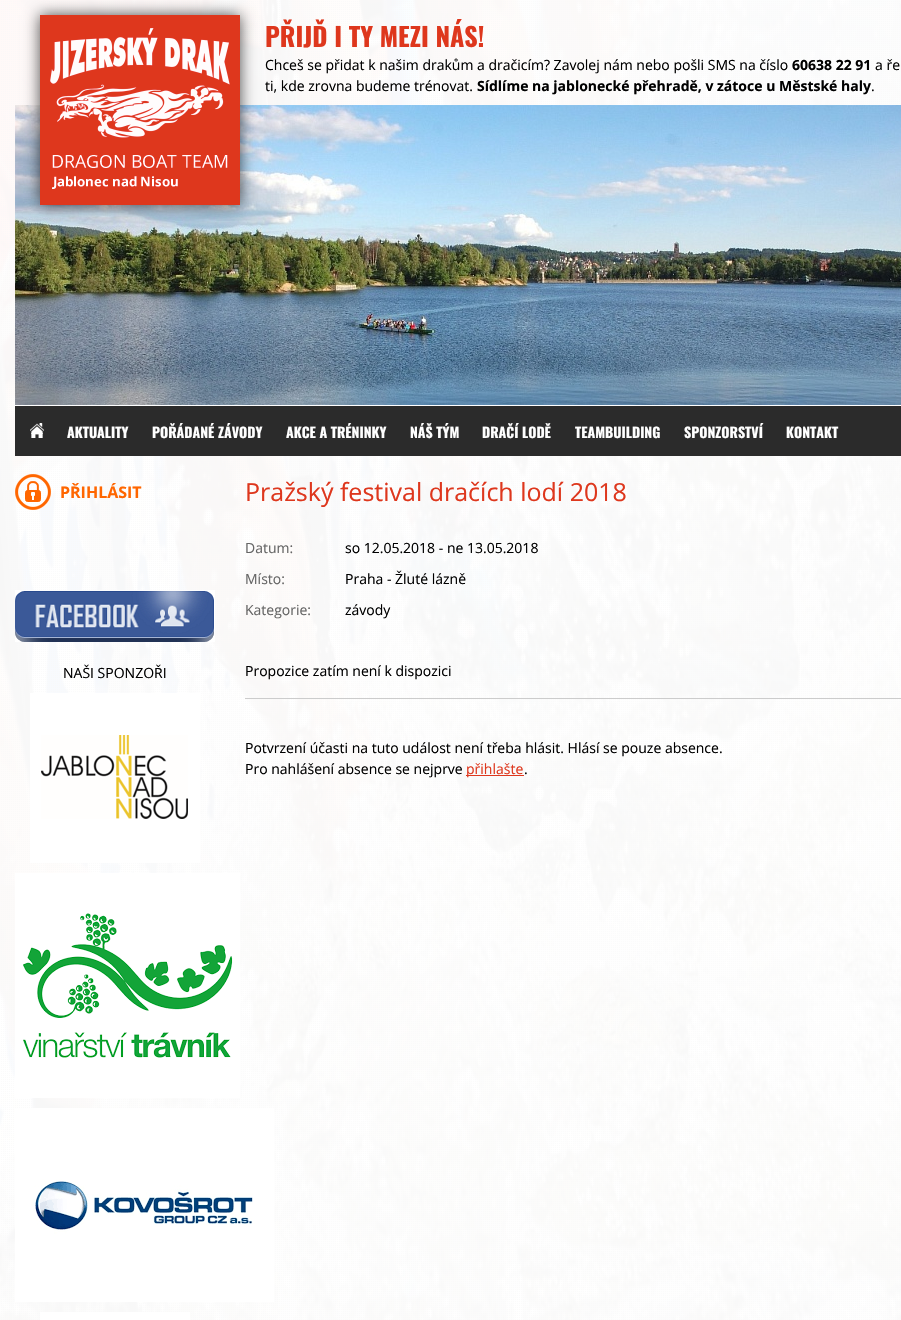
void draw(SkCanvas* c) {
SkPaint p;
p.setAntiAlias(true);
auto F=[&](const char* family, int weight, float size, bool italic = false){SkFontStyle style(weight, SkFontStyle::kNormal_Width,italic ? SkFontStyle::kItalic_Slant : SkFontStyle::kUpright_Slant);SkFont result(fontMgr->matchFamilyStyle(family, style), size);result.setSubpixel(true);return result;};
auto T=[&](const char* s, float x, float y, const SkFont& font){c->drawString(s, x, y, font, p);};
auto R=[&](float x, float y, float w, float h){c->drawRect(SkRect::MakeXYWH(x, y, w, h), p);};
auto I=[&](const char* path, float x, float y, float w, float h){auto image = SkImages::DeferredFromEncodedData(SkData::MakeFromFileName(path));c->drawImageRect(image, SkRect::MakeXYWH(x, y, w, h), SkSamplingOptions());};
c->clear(0xffffffff);
I("1.png",0,0,901,1320);
I("2.png",1,1,899,1319);
I("4.png",15,105,886,300);
p.setColor(0xb3000000);
p.setMaskFilter(SkMaskFilter::MakeBlur(kNormal_SkBlurStyle, 7.5));
c->drawRect(SkRect::MakeXYWH(40,15,200,190),p);
p.setMaskFilter(nullptr);
I("3.png",40,15,200,190);
auto f1 = F("Oswald",700,26);
p.setColor(0xffde371d);
T("PŘIJĎ I TY MEZI NÁS!",265,47,f1);
auto f2 = F("Open Sans",400,14);
p.setColor(0xff000000);
T("Chceš se přidat k našim drakům a dračicím? Zavolej nám nebo pošli SMS na číslo",265,70,f2);
auto f3 = F("Open Sans",700,14);
T("60638 22 91",792,70,f3);
T("a ře",875,70,f2);
T("ti, kde zrovna budeme trénovat.",265,91,f2);
T("Sídlíme na jablonecké přehradě, v zátoce u Městské haly",477,91,f3);
T(".",871,91,f2);
p.setColor(0xff2b2b2b);
R(15,406,886,50);
p.setColor(0xffffffff);
R(15,405,886,1);
I("5.png",30,423,14,15);
auto f4 = F("Oswald",700,14);
T("AKTUALITY",67,438,f4);
T("POŘÁDANÉ ZÁVODY",152,438,f4);
T("AKCE A TRÉNINKY",286,438,f4);
T("NÁŠ TÝM",410,438,f4);
T("DRAČÍ LODĚ",482,438,f4);
T("TEAMBUILDING",575,438,f4);
T("SPONZORSTVÍ",684,438,f4);
T("KONTAKT",786,438,f4);
I("6.png",15,474,36,36);
auto f5 = F("Open Sans",700,16);
p.setColor(0xffff6600);
T("PŘIHLÁSIT",60,498,f5);
I("7.png",15,590,200,52);
p.setColor(0xff000000);
T("NAŠI SPONZOŘI",63,678,f2);
I("8.png",30,693,170,170);
I("9.png",15,873,225,225);
I("10.png",15,1108,259,194);
p.setColor(0xffffffff);
R(40,1312,150,8);
auto f6 = F("Open Sans",400,25);
p.setColor(0xffde371d);
T("Pražský festival dračích lodí 2018",245,501,f6);
p.setColor(0xff666666);
T("Datum:",245,553,f2);
p.setColor(0xff000000);
T("so 12.05.2018 - ne 13.05.2018",345,553,f2);
p.setColor(0xff666666);
T("Místo:",245,584,f2);
p.setColor(0xff000000);
T("Praha - Žluté lázně",345,584,f2);
p.setColor(0xff666666);
T("Kategorie:",245,615,f2);
p.setColor(0xff000000);
T("závody",345,615,f2);
T("Propozice zatím není k dispozici",245,676,f2);
p.setColor(0xffcccccc);
R(245,698,656,1);
p.setColor(0xff000000);
T("Potvrzení účasti na tuto událost není třeba hlásit. Hlásí se pouze absence.",245,753,f2);
T("Pro nahlášení absence se nejprve",245,774,f2);
p.setColor(0xffde371d);
R(466,775,58,1);
T("přihlašte",466,774,f2);
p.setColor(0xff000000);
T(".",524,774,f2);
}
